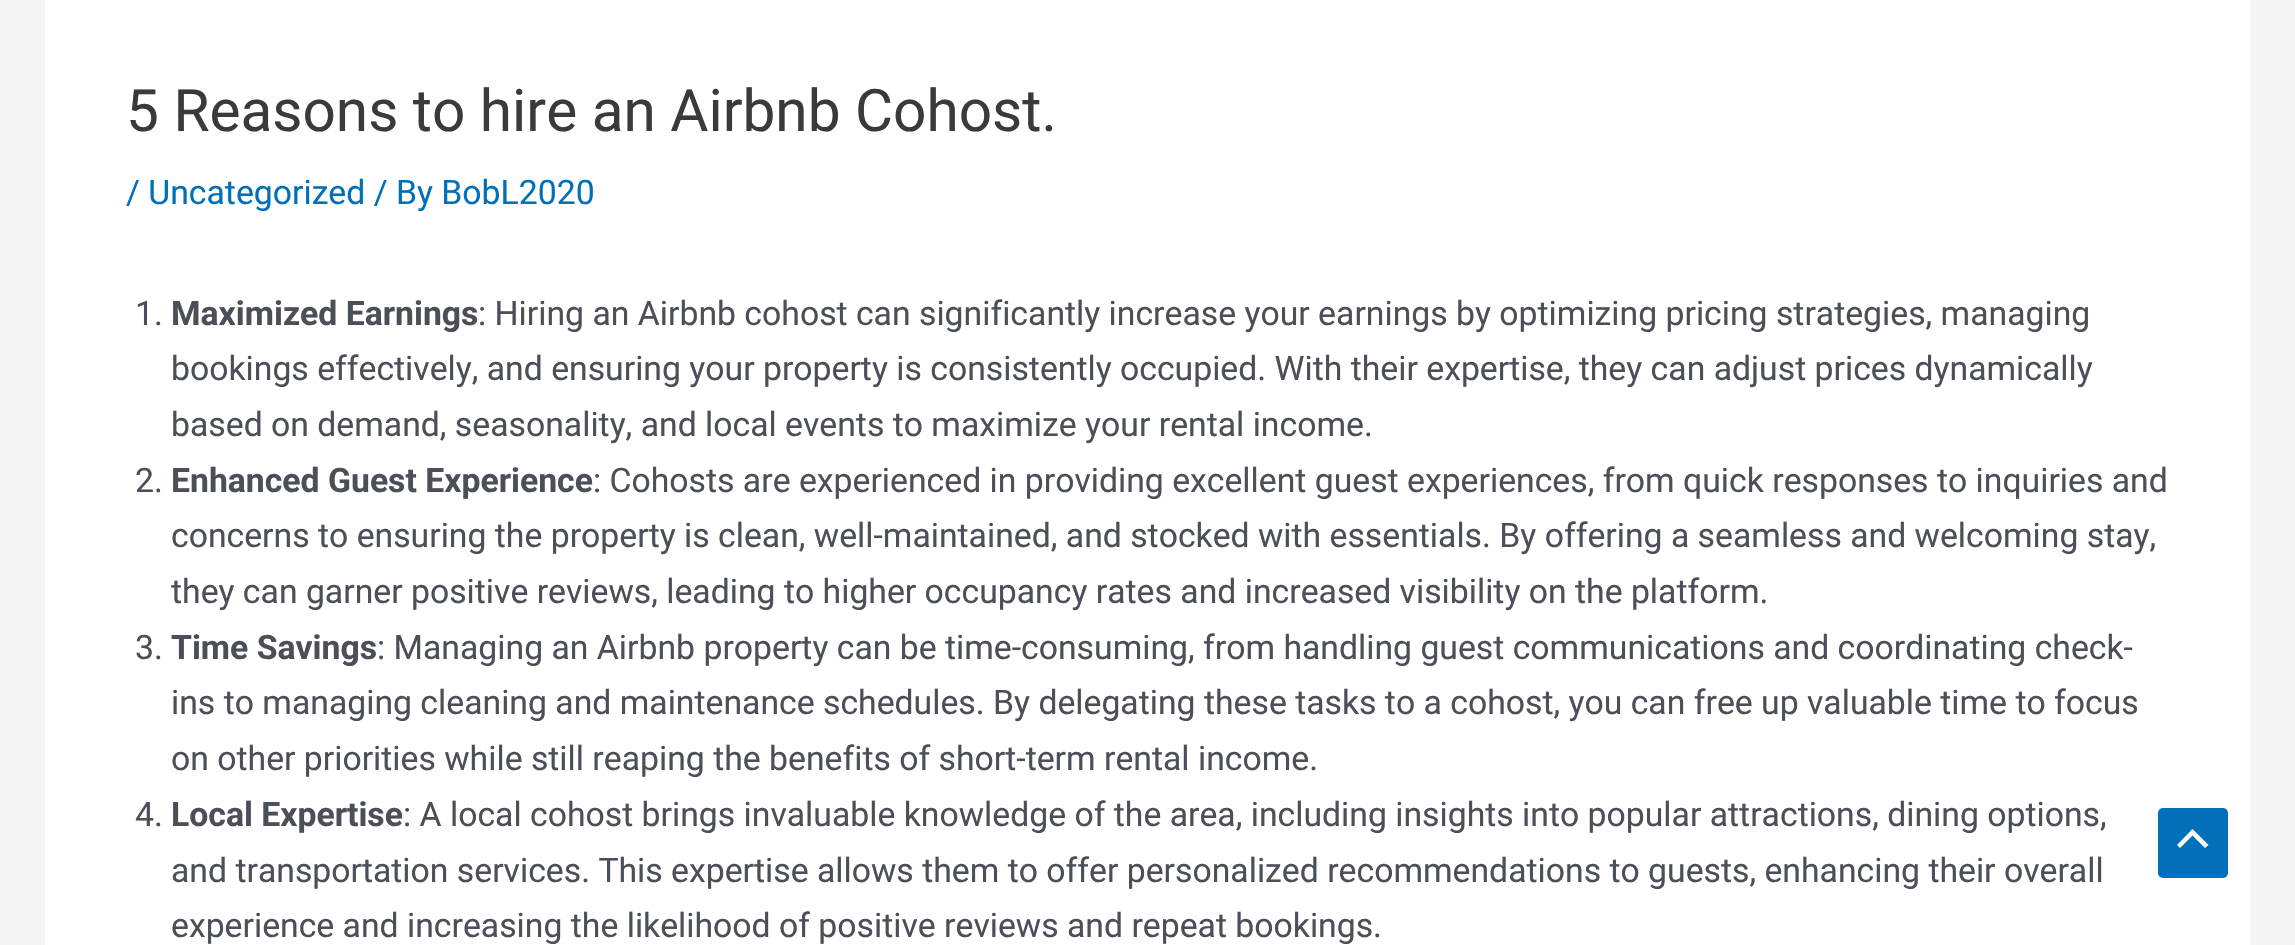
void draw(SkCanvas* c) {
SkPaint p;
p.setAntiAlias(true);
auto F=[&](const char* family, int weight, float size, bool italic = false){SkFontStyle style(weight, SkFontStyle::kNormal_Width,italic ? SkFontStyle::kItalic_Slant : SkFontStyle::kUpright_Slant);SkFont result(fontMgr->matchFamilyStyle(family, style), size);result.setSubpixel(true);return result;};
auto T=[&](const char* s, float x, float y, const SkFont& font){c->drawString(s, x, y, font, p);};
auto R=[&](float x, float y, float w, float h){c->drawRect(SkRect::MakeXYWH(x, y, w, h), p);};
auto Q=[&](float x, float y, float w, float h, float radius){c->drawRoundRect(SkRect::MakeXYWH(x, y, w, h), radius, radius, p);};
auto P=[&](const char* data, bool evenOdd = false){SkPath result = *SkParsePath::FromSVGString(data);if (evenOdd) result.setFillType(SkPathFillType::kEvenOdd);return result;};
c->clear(0xfff5f5f5);
p.setColor(0xffffffff);
R(45,0,2205,945);
auto f1 = F("Roboto",400,58.5);
p.setColor(0xff3a3a3a);
T("5 Reasons to hire an Airbnb Cohost.",126,131,f1);
auto f2 = F("Roboto",400,33.75);
p.setColor(0xff0170b9);
T("/ Uncategorized / By BobL2020",126,204,f2);
p.setColor(0xff4b4f58);
T("1.",135,325,f2);
auto f3 = F("Roboto",700,33.75);
T("Maximized Earnings",171,325,f3);
T(": Hiring an Airbnb cohost can significantly increase your earnings by optimizing pricing strategies, managing",478,325,f2);
T("bookings effectively, and ensuring your property is consistently occupied. With their expertise, they can adjust prices dynamically",171,380,f2);
T("based on demand, seasonality, and local events to maximize your rental income.",171,436,f2);
T("2.",135,492,f2);
T("Enhanced Guest Experience",171,492,f3);
T(": Cohosts are experienced in providing excellent guest experiences, from quick responses to inquiries and",593,492,f2);
T("concerns to ensuring the property is clean, well-maintained, and stocked with essentials. By offering a seamless and welcoming stay,",171,547,f2);
T("they can garner positive reviews, leading to higher occupancy rates and increased visibility on the platform.",171,603,f2);
T("3.",135,659,f2);
T("Time Savings",171,659,f3);
T(": Managing an Airbnb property can be time-consuming, from handling guest communications and coordinating check-",377,659,f2);
T("ins to managing cleaning and maintenance schedules. By delegating these tasks to a cohost, you can free up valuable time to focus",171,714,f2);
T("on other priorities while still reaping the benefits of short-term rental income.",171,770,f2);
T("4.",135,826,f2);
T("Local Expertise",171,826,f3);
T(": A local cohost brings invaluable knowledge of the area, including insights into popular attractions, dining options,",403,826,f2);
T("and transportation services. This expertise allows them to offer personalized recommendations to guests, enhancing their overall",171,882,f2);
T("experience and increasing the likelihood of positive reviews and repeat bookings.",171,937,f2);
p.setColor(0xff0170b9);
Q(2158,808,70,70,5);
p.setColor(0xffffffff);
c->drawPath(P("M2208.5 845l-16-16l-15.5 16l3 3l12.5-12.5l12.5 12.5z"),p);
}
